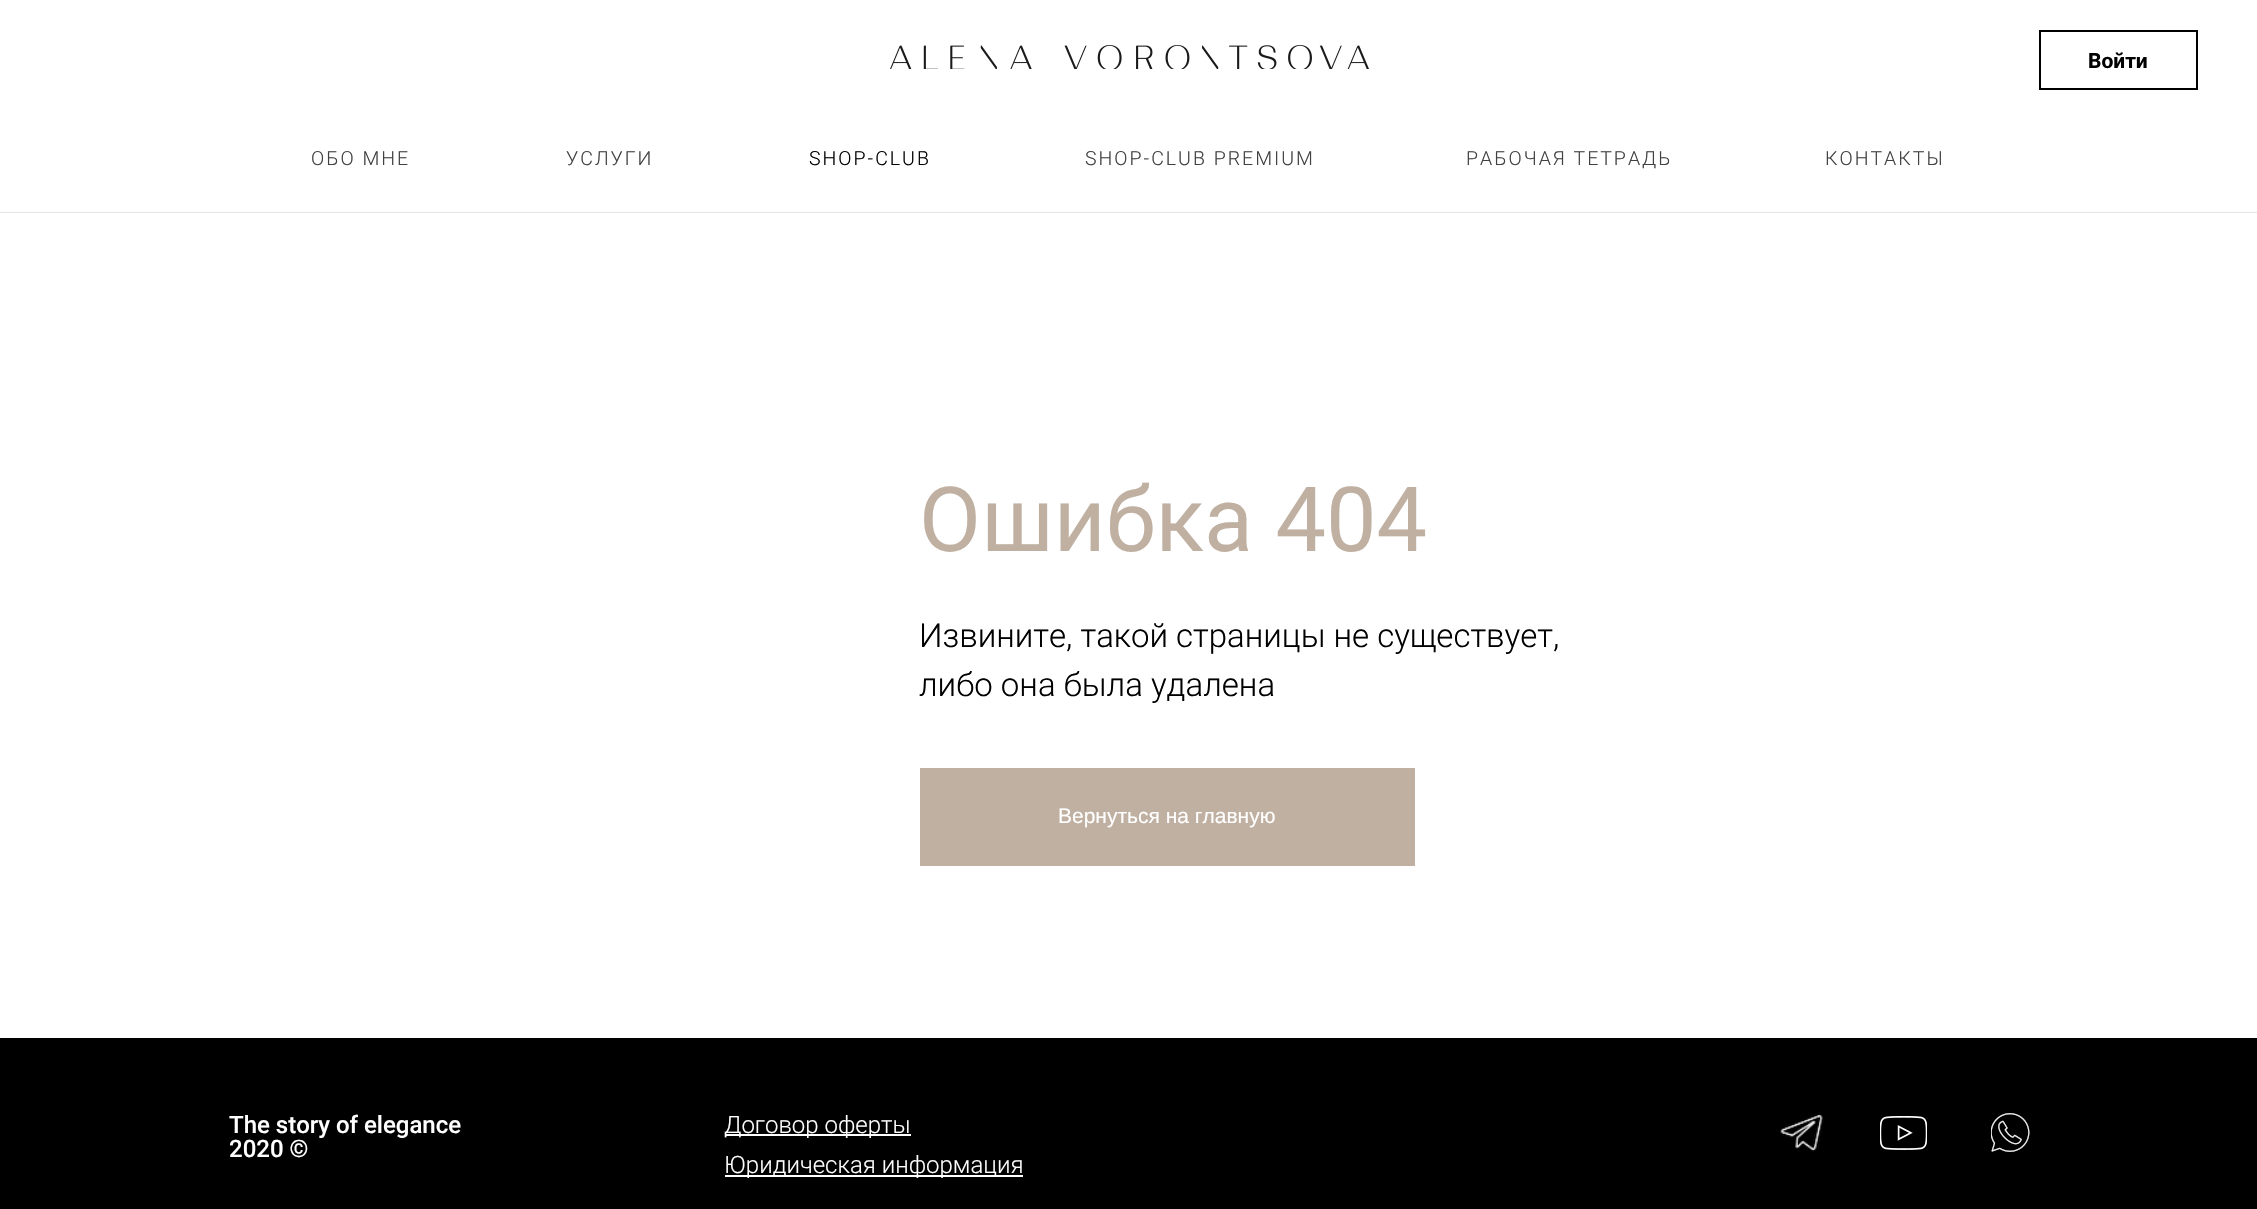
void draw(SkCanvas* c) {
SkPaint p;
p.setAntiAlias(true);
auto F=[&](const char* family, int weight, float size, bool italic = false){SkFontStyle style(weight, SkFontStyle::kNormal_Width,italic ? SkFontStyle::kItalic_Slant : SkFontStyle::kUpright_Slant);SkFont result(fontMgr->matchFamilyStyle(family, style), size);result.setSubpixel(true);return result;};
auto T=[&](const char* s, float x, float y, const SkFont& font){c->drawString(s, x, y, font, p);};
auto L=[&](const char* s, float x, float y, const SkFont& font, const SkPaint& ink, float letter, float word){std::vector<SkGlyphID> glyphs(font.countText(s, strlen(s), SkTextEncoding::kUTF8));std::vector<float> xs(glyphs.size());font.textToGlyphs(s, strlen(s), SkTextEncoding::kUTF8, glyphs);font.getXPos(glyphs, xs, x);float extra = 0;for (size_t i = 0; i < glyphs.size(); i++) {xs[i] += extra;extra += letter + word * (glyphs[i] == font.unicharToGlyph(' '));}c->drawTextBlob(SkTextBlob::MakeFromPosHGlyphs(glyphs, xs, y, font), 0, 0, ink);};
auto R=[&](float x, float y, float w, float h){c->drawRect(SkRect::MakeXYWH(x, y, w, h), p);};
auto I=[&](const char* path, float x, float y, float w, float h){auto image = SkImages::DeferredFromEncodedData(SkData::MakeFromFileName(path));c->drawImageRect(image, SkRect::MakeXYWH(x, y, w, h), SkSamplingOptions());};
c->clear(0xffffffff);
I("1.png",890,45,479,24);
p.setStroke(true);
p.setStrokeWidth(2);
p.setColor(0xff000000);
c->drawRect(SkRect::MakeXYWH(2040,31,157,58),p);
auto f1 = F("Roboto",700,21);
p.setStroke(false);
T("Войти",2088,68,f1);
auto f2 = F("Roboto",300,19.5);
p.setColor(0xff414141);
L("ОБО МНЕ",311,165,f2,p,2,0);
L("УСЛУГИ",566,165,f2,p,2,0);
p.setColor(0xff000000);
L("SHOP-CLUB",809,165,f2,p,2,0);
p.setColor(0xff414141);
L("SHOP-CLUB PREMIUM",1085,165,f2,p,2,0);
L("РАБОЧАЯ ТЕТРАДЬ",1466,165,f2,p,2,0);
L("КОНТАКТЫ",1825,165,f2,p,2,0);
p.setColor(0xffe6e6e6);
R(0,212,2257,1);
auto f3 = F("Roboto",400,90);
p.setColor(0xffc0b0a1);
T("Ошибка 404",919,551,f3);
auto f4 = F("Roboto",300,33);
p.setColor(0xff000000);
T("Извините, такой страницы не существует,",919,647,f4);
T("либо она была удалена",919,696,f4);
p.setColor(0xffc0b0a1);
R(920,768,495,98);
auto f5 = F("Liberation Sans",400,21);
p.setColor(0xffffffff);
T("Вернуться на главную",1058,823,f5);
p.setColor(0xff000000);
R(0,1038,2257,171);
auto f6 = F("Roboto",500,24);
p.setColor(0xffffffff);
T("The story of elegance",229,1133,f6);
T("2020 ©",229,1157,f6);
R(725,1134,186,2);
auto f7 = F("Roboto",300,24);
T("Договор оферты",724,1133,f7);
I("2.png",1780,1112,44,41);
I("3.png",1880,1116,47,34);
I("4.png",1991,1113,39,39);
R(725,1175,298,2);
T("Юридическая информация",724,1173,f7);
}
